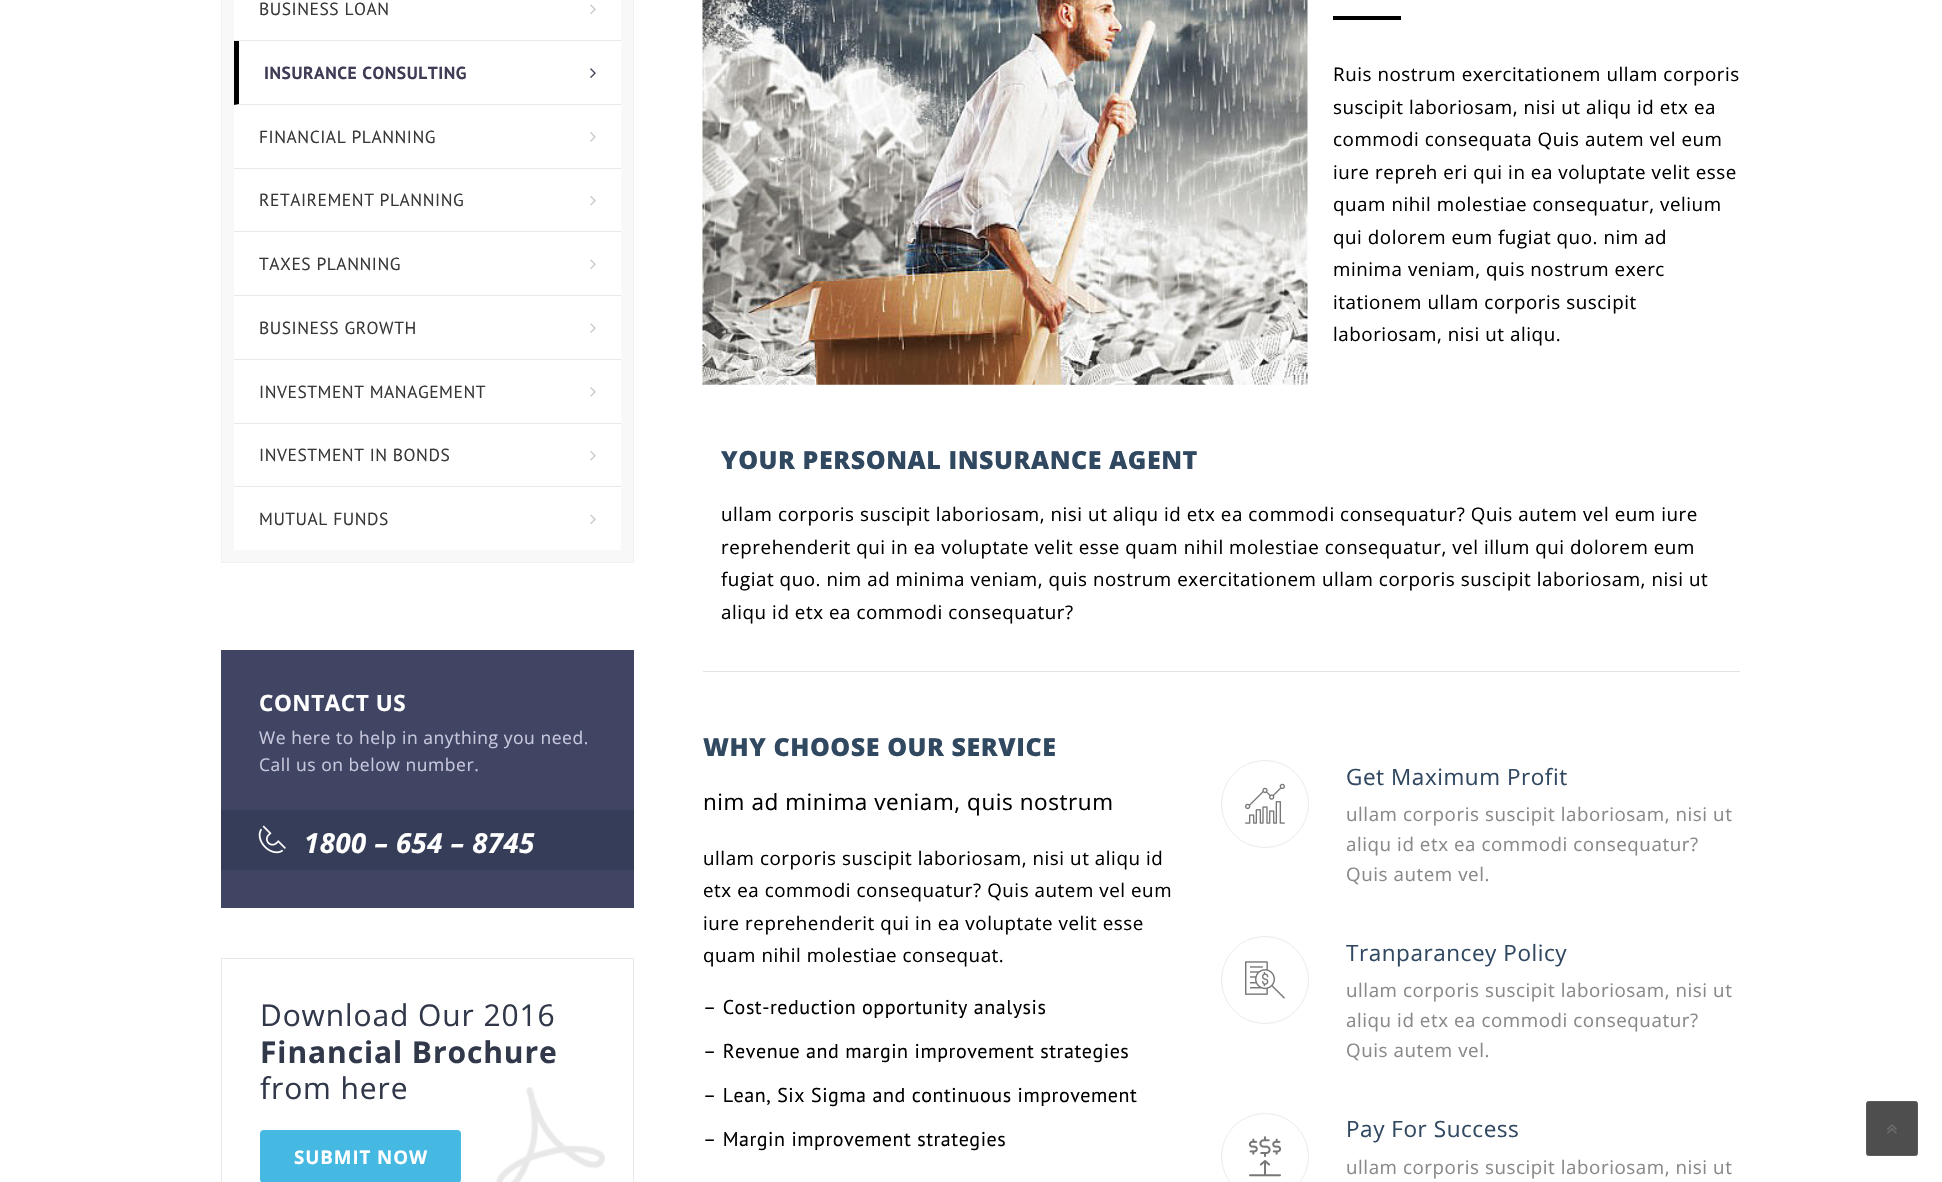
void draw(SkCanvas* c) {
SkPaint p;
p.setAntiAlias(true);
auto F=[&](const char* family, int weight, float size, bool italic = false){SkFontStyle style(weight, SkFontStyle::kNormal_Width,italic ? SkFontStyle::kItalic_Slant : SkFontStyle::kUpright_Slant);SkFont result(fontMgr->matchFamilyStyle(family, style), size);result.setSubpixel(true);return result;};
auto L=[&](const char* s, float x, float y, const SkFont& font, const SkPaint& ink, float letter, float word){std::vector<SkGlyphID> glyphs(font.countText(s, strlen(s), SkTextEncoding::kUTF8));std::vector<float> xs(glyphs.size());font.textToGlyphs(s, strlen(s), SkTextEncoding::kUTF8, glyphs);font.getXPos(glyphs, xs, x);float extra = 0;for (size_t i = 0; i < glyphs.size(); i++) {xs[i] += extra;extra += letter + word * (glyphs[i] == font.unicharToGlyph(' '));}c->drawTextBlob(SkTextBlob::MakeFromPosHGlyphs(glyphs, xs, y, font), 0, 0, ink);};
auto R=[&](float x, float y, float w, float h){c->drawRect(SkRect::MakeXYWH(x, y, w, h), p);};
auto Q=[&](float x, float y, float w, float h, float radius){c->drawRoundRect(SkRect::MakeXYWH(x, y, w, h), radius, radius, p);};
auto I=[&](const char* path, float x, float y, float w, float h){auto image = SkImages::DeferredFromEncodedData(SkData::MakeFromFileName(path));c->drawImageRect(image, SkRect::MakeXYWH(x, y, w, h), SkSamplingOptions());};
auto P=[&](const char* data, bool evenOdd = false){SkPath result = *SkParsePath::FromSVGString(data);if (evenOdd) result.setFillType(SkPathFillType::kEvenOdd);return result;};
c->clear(0xffffffff);
p.setColor(0xfff8f8f8);
c->drawRect(SkRect::MakeXYWH(221.5,-.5,412,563),p);
p.setStroke(true);
p.setStrokeWidth(1);
p.setColor(0xfff1f1f1);
c->drawRect(SkRect::MakeXYWH(221.5,-.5,412,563),p);
p.setStroke(false);
p.setColor(0xffffffff);
R(234,0,387,40);
p.setColor(0xffe9e9e9);
R(234,40,387,1);
auto f1 = F("PT Sans",400,17.5);
p.setColor(0xff383838);
L("BUSINESS LOAN",259,15,f1,p,.55,0);
I("1.png",590,4,6,10);
p.setColor(0xffffffff);
R(234,41,387,127);
p.setColor(0xffe9e9e9);
c->drawPath(P("M621 105h-387l5-1h382z"),p);
p.setColor(0xff000000);
c->drawPath(P("M234 105v-64h5v63z"),p);
auto f2 = F("PT Sans",700,17.5);
p.setColor(0xff403c56);
L("INSURANCE CONSULTING",264,79,f2,p,.55,0);
I("2.png",590,68,6,10);
p.setColor(0xffe9e9e9);
R(234,168,387,1);
p.setColor(0xff383838);
L("FINANCIAL PLANNING",259,143,f1,p,.55,0);
I("3.png",590,132,6,10);
p.setColor(0xffffffff);
R(234,169,387,126);
p.setColor(0xffe9e9e9);
R(234,231,387,1);
p.setColor(0xff383838);
L("RETAIREMENT PLANNING",259,206,f1,p,.55,0);
I("4.png",590,196,6,10);
p.setColor(0xffe9e9e9);
R(234,295,387,1);
p.setColor(0xff383838);
L("TAXES PLANNING",259,270,f1,p,.55,0);
I("1.png",590,259,6,10);
p.setColor(0xffffffff);
R(234,296,387,63);
p.setColor(0xffe9e9e9);
R(234,359,387,1);
p.setColor(0xff383838);
L("BUSINESS GROWTH",259,334,f1,p,.55,0);
I("5.png",590,323,6,10);
p.setColor(0xffffffff);
R(234,360,387,63);
p.setColor(0xffe9e9e9);
R(234,423,387,1);
p.setColor(0xff383838);
L("INVESTMENT MANAGEMENT",259,398,f1,p,.55,0);
I("3.png",590,387,6,10);
p.setColor(0xffffffff);
R(234,424,387,126);
p.setColor(0xffe9e9e9);
R(234,486,387,1);
p.setColor(0xff383838);
L("INVESTMENT IN BONDS",259,461,f1,p,.55,0);
I("4.png",590,451,6,10);
L("MUTUAL FUNDS",259,525,f1,p,.55,0);
I("1.png",590,514,6,10);
p.setColor(0xff3f4563);
R(221,650,413,258);
auto f3 = F("Open Sans",700,22.5);
p.setColor(0xffffffff);
L("CONTACT US",259,711,f3,p,.55,0);
auto f4 = F("Open Sans",400,17.5);
p.setColor(0xffc8c8dd);
L("We here to help in anything you need.",259,744,f4,p,.55,0);
L("Call us on below number.",259,771,f4,p,.55,0);
p.setColor(0xff363d58);
R(221,810,413,60);
I("6.png",258,825,28,29);
auto f5 = F("Open Sans",700,27.5,true);
p.setColor(0xffffffff);
L("1800 – 654 – 8745",304,853,f5,p,.55,0);
I("7.png",496,1087,109,95);
p.setStroke(true);
p.setColor(0xffe7e7ee);
c->drawRect(SkRect::MakeXYWH(221.5,958.5,412,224),p);
auto f6 = F("Open Sans",400,30);
p.setStroke(false);
p.setColor(0xff31384a);
L("Download Our 2016",260,1026,f6,p,.9,0);
auto f7 = F("Open Sans",700,30);
L("Financial Brochure",260,1063,f7,p,.9,0);
L("from here",260,1099,f6,p,.9,0);
p.setColor(0xff46b9e3);
Q(260,1130,201,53,4);
auto f8 = F("Open Sans",700,18.75);
p.setColor(0xffffffff);
L("SUBMIT NOW",294,1164,f8,p,.9,0);
I("8.png",702,0,606,385);
p.setColor(0xff000000);
R(1333,16,68,4);
auto f9 = F("Open Sans",400,18.75);
L("Ruis nostrum exercitationem ullam corporis",1333,81,f9,p,.56,0);
L("suscipit laboriosam, nisi ut aliqu id etx ea",1333,114,f9,p,.56,0);
L("commodi consequata Quis autem vel eum",1333,146,f9,p,.56,0);
L("iure repreh eri qui in ea voluptate velit esse",1333,179,f9,p,.56,0);
L("quam nihil molestiae consequatur, velium",1333,211,f9,p,.56,0);
L("qui dolorem eum fugiat quo. nim ad",1333,244,f9,p,.56,0);
L("minima veniam, quis nostrum exerc",1333,276,f9,p,.56,0);
L("itationem ullam corporis suscipit",1333,309,f9,p,.56,0);
L("laboriosam, nisi ut aliqu.",1333,341,f9,p,.56,0);
auto f10 = F("Open Sans",800,25);
p.setColor(0xff314861);
L("YOUR PERSONAL INSURANCE AGENT",721,469,f10,p,.55,0);
p.setColor(0xff000000);
L("ullam corporis suscipit laboriosam, nisi ut aliqu id etx ea commodi consequatur? Quis autem vel eum iure",721,521,f9,p,.56,0);
L("reprehenderit qui in ea voluptate velit esse quam nihil molestiae consequatur, vel illum qui dolorem eum",721,554,f9,p,.56,0);
L("fugiat quo. nim ad minima veniam, quis nostrum exercitationem ullam corporis suscipit laboriosam, nisi ut",721,586,f9,p,.56,0);
L("aliqu id etx ea commodi consequatur?",721,619,f9,p,.56,0);
p.setColor(0xffe3e3e3);
R(703,671,1037,1);
p.setColor(0xff314861);
L("WHY CHOOSE OUR SERVICE",703,756,f10,p,.55,0);
auto f11 = F("Open Sans",400,22.5);
p.setColor(0xff000000);
L("nim ad minima veniam, quis nostrum",703,810,f11,p,.56,0);
L("ullam corporis suscipit laboriosam, nisi ut aliqu id",703,865,f9,p,.56,0);
L("etx ea commodi consequatur? Quis autem vel eum",703,897,f9,p,.56,0);
L("iure reprehenderit qui in ea voluptate velit esse",703,930,f9,p,.56,0);
L("quam nihil molestiae consequat.",703,962,f9,p,.56,0);
auto f12 = F("PT Sans",400,20);
L("– Cost-reduction opportunity analysis",703,1014,f12,p,.55,0);
L("– Revenue and margin improvement strategies",703,1058,f12,p,.55,0);
L("– Lean, Six Sigma and continuous improvement",703,1102,f12,p,.55,0);
L("– Margin improvement strategies",703,1146,f12,p,.55,0);
p.setStroke(true);
p.setColor(0xffebebeb);
c->drawCircle(1265,804,43.5,p);
I("9.png",1245,783,40,41);
p.setStroke(false);
p.setColor(0xff314861);
L("Get Maximum Profit",1346,785,f11,p,.55,0);
p.setColor(0xff898989);
L("ullam corporis suscipit laboriosam, nisi ut",1346,821,f9,p,.56,0);
L("aliqu id etx ea commodi consequatur?",1346,851,f9,p,.56,0);
L("Quis autem vel.",1346,881,f9,p,.56,0);
p.setStroke(true);
p.setColor(0xffebebeb);
c->drawCircle(1265,980,43.5,p);
I("10.png",1245,961,40,38);
p.setStroke(false);
p.setColor(0xff314861);
L("Tranparancey Policy",1346,961,f11,p,.55,0);
p.setColor(0xff898989);
L("ullam corporis suscipit laboriosam, nisi ut",1346,997,f9,p,.56,0);
L("aliqu id etx ea commodi consequatur?",1346,1027,f9,p,.56,0);
L("Quis autem vel.",1346,1057,f9,p,.56,0);
p.setStroke(true);
p.setColor(0xffebebeb);
c->drawRoundRect(SkRect::MakeXYWH(1221.5,1113.5,87,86),43,43,p);
I("11.png",1248,1136,34,41);
p.setStroke(false);
p.setColor(0xff314861);
L("Pay For Success",1346,1137,f11,p,.55,0);
p.setColor(0xff898989);
L("ullam corporis suscipit laboriosam, nisi ut",1346,1174,f9,p,.56,0);
p.setColor(0xff4e4e4e);
c->drawRoundRect(SkRect::MakeXYWH(1866.5,1101.5,51,54),2,2,p);
p.setStroke(true);
p.setColor(0xff5c5c5c);
c->drawRoundRect(SkRect::MakeXYWH(1866.5,1101.5,51,54),2,2,p);
I("12.png",1887,1124,10,10);
}
